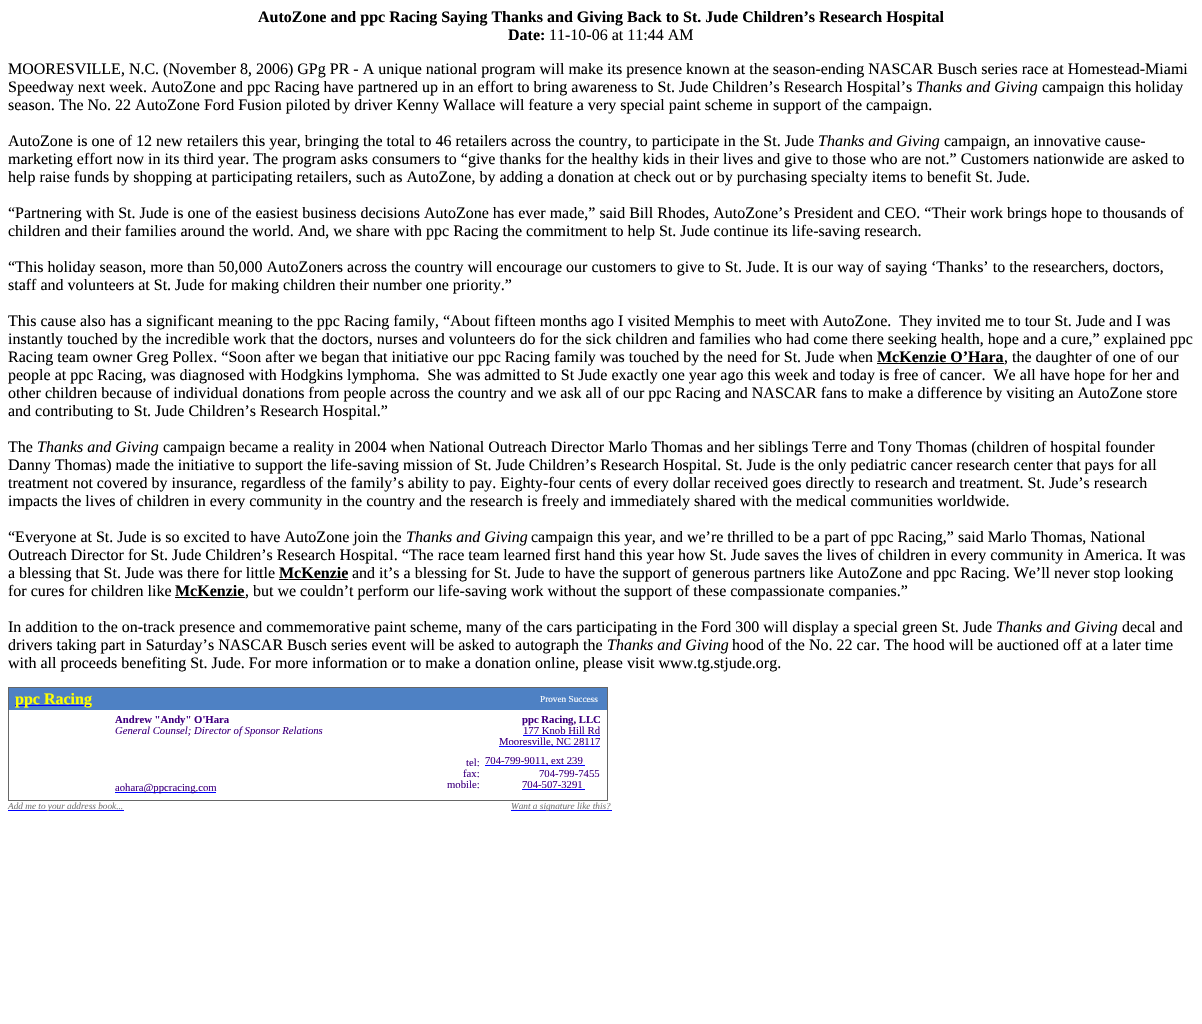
void draw(SkCanvas* c) {
SkPaint p;
p.setAntiAlias(true);
auto F=[&](const char* family, int weight, float size, bool italic = false){SkFontStyle style(weight, SkFontStyle::kNormal_Width,italic ? SkFontStyle::kItalic_Slant : SkFontStyle::kUpright_Slant);SkFont result(fontMgr->matchFamilyStyle(family, style), size);result.setSubpixel(true);return result;};
auto T=[&](const char* s, float x, float y, const SkFont& font){c->drawString(s, x, y, font, p);};
auto R=[&](float x, float y, float w, float h){c->drawRect(SkRect::MakeXYWH(x, y, w, h), p);};
c->clear(0xffffffff);
auto f1 = F("Liberation Serif",700,16);
p.setColor(0xff000000);
T("AutoZone and ppc Racing Saying Thanks and Giving Back to St. Jude Children’s Research Hospital",258,22,f1);
T("Date:",508,40,f1);
auto f2 = F("Liberation Serif",400,16);
T("11-10-06 at 11:44 AM",549,40,f2);
T("MOORESVILLE, N.C. (November 8, 2006) GPg PR - A unique national program will make its presence known at the season-ending NASCAR Busch series race at Homestead-Miami",8,74,f2);
T("Speedway next week. AutoZone and ppc Racing have partnered up in an effort to bring awareness to St. Jude Children’s Research Hospital’s",8,92,f2);
auto f3 = F("Liberation Serif",400,16,true);
T("Thanks and Giving",916,92,f3);
T("campaign this holiday",1042,92,f2);
T("season. The No. 22 AutoZone Ford Fusion piloted by driver Kenny Wallace will feature a very special paint scheme in support of the campaign.",8,110,f2);
T("AutoZone is one of 12 new retailers this year, bringing the total to 46 retailers across the country, to participate in the St. Jude",8,146,f2);
T("Thanks and Giving",818,146,f3);
T("campaign, an innovative cause-",944,146,f2);
T("marketing effort now in its third year. The program asks consumers to “give thanks for the healthy kids in their lives and give to those who are not.” Customers nationwide are asked to",8,164,f2);
T("help raise funds by shopping at participating retailers, such as AutoZone, by adding a donation at check out or by purchasing specialty items to benefit St. Jude.",8,182,f2);
T("“Partnering with St. Jude is one of the easiest business decisions AutoZone has ever made,” said Bill Rhodes, AutoZone’s President and CEO. “Their work brings hope to thousands of",8,218,f2);
T("children and their families around the world. And, we share with ppc Racing the commitment to help St. Jude continue its life-saving research.",8,236,f2);
T("“This holiday season, more than 50,000 AutoZoners across the country will encourage our customers to give to St. Jude. It is our way of saying ‘Thanks’ to the researchers, doctors,",8,272,f2);
T("staff and volunteers at St. Jude for making children their number one priority.”",8,290,f2);
T("This cause also has a significant meaning to the ppc Racing family, “About fifteen months ago I visited Memphis to meet with AutoZone.  They invited me to tour St. Jude and I was",8,326,f2);
T("instantly touched by the incredible work that the doctors, nurses and volunteers do for the sick children and families who had come there seeking health, hope and a cure,” explained ppc",8,344,f2);
T("Racing team owner Greg Pollex. “Soon after we began that initiative our ppc Racing family was touched by the need for St. Jude when",8,362,f2);
T("McKenzie O’Hara",877,362,f1);
T(", the daughter of one of our",1004,362,f2);
R(877,363,127,1);
T("people at ppc Racing, was diagnosed with Hodgkins lymphoma.  She was admitted to St Jude exactly one year ago this week and today is free of cancer.  We all have hope for her and",8,380,f2);
T("other children because of individual donations from people across the country and we ask all of our ppc Racing and NASCAR fans to make a difference by visiting an AutoZone store",8,398,f2);
T("and contributing to St. Jude Children’s Research Hospital.”",8,416,f2);
T("The",8,452,f2);
T("Thanks and Giving",37,452,f3);
T("campaign became a reality in 2004 when National Outreach Director Marlo Thomas and her siblings Terre and Tony Thomas (children of hospital founder",163,452,f2);
T("Danny Thomas) made the initiative to support the life-saving mission of St. Jude Children’s Research Hospital. St. Jude is the only pediatric cancer research center that pays for all",8,470,f2);
T("treatment not covered by insurance, regardless of the family’s ability to pay. Eighty-four cents of every dollar received goes directly to research and treatment. St. Jude’s research",8,488,f2);
T("impacts the lives of children in every community in the country and the research is freely and immediately shared with the medical communities worldwide.",8,506,f2);
T("“Everyone at St. Jude is so excited to have AutoZone join the",8,542,f2);
T("Thanks and Giving",406,542,f3);
T("campaign this year, and we’re thrilled to be a part of ppc Racing,” said Marlo Thomas, National",531,542,f2);
T("Outreach Director for St. Jude Children’s Research Hospital. “The race team learned first hand this year how St. Jude saves the lives of children in every community in America. It was",8,560,f2);
T("a blessing that St. Jude was there for little",8,578,f2);
T("McKenzie",279,578,f1);
R(279,579,69,1);
T("and it’s a blessing for St. Jude to have the support of generous partners like AutoZone and ppc Racing. We’ll never stop looking",352,578,f2);
T("for cures for children like",8,596,f2);
T("McKenzie",175,596,f1);
T(", but we couldn’t perform our life-saving work without the support of these compassionate companies.”",245,596,f2);
R(175,597,70,1);
T("In addition to the on-track presence and commemorative paint scheme, many of the cars participating in the Ford 300 will display a special green St. Jude",8,632,f2);
T("Thanks and Giving",996,632,f3);
T("decal and",1122,632,f2);
T("drivers taking part in Saturday’s NASCAR Busch series event will be asked to autograph the",8,650,f2);
T("Thanks and Giving",607,650,f3);
T("hood of the No. 22 car. The hood will be auctioned off at a later time",732,650,f2);
T("with all proceeds benefiting St. Jude. For more information or to make a donation online, please visit www.tg.stjude.org.",8,668,f2);
p.setStroke(true);
p.setStrokeWidth(1);
p.setColor(0xff666666);
c->drawRect(SkRect::MakeXYWH(8.5,687.5,599,113),p);
p.setStroke(false);
p.setColor(0xff4e81c4);
R(9,688,598,22);
p.setColor(0xff0000ff);
R(15,705,77,1);
p.setColor(0xffffff00);
T("ppc Racing",15,704,f1);
auto f4 = F("Liberation Serif",400,9.25);
p.setColor(0xffffffff);
T("Proven Success",540,702,f4);
auto f5 = F("Liberation Serif",700,10.7);
p.setColor(0xff400080);
T("Andrew \"Andy\" O'Hara",115,723,f5);
auto f6 = F("Liberation Serif",400,10.7,true);
T("General Counsel; Director of Sponsor Relations",115,734,f6);
T("ppc Racing, LLC",522,723,f5);
auto f7 = F("Liberation Serif",400,10.7);
T("177 Knob Hill Rd",523,734,f7);
p.setColor(0xff0000ff);
R(523,735,77,1);
R(499,746,101,1);
p.setColor(0xff400080);
T("Mooresville, NC 28117",499,745,f7);
p.setColor(0xff0000ff);
R(115,792,101,1);
p.setColor(0xff400080);
T("aohara@ppcracing.com",115,791,f7);
T("tel:",466,766,f7);
T("fax:",463,777,f7);
T("mobile:",447,788,f7);
p.setColor(0xff0000ff);
R(485,765,100,1);
p.setColor(0xff400080);
T("704-799-9011, ext 239",485,764,f7);
T("704-799-7455",539,777,f7);
T("704-507-3291",522,788,f7);
p.setColor(0xff0000ff);
R(522,789,63,1);
R(8,810,116,1);
auto f8 = F("Liberation Serif",400,9.25,true);
p.setColor(0xff777777);
T("Add me to your address book...",8,809,f8);
p.setColor(0xff0000ff);
R(511,810,101,1);
p.setColor(0xff777777);
T("Want a signature like this?",511,809,f8);
}
